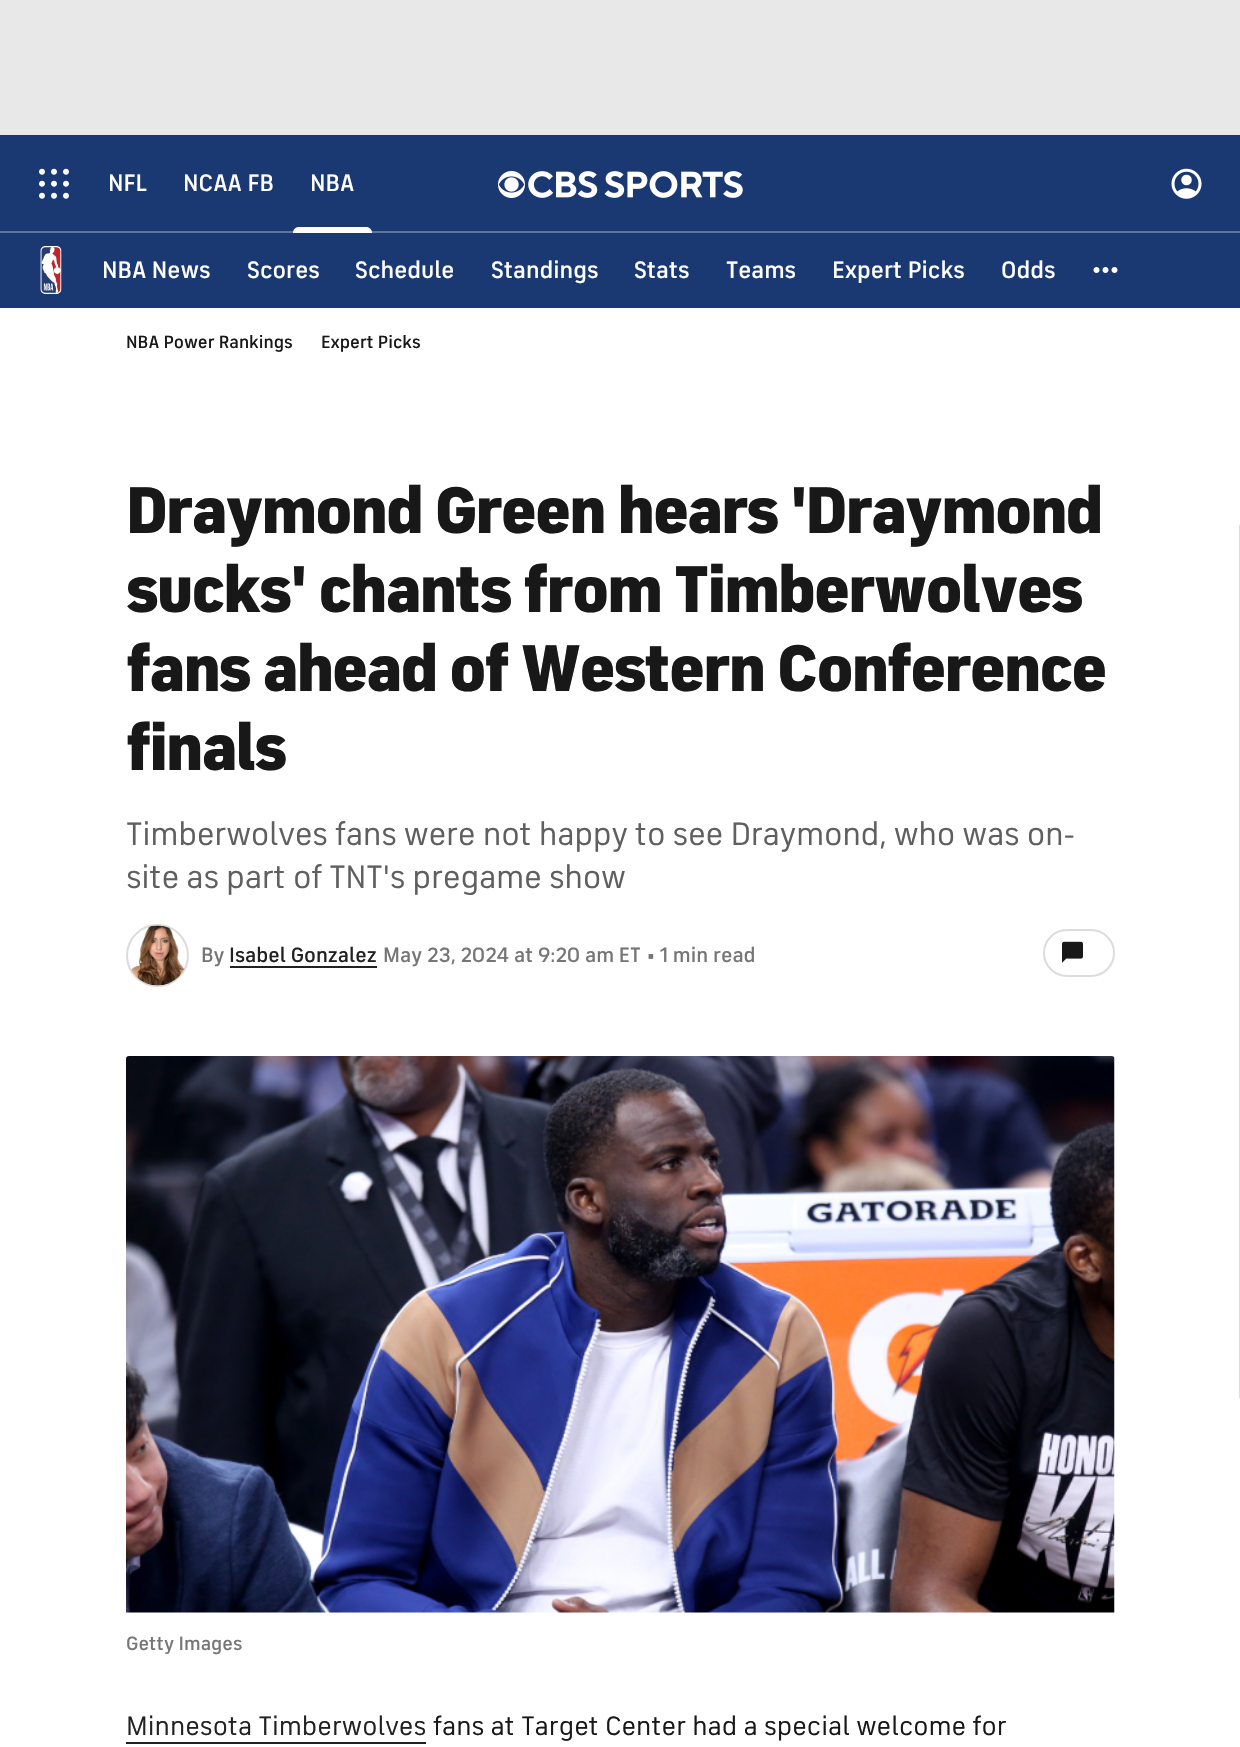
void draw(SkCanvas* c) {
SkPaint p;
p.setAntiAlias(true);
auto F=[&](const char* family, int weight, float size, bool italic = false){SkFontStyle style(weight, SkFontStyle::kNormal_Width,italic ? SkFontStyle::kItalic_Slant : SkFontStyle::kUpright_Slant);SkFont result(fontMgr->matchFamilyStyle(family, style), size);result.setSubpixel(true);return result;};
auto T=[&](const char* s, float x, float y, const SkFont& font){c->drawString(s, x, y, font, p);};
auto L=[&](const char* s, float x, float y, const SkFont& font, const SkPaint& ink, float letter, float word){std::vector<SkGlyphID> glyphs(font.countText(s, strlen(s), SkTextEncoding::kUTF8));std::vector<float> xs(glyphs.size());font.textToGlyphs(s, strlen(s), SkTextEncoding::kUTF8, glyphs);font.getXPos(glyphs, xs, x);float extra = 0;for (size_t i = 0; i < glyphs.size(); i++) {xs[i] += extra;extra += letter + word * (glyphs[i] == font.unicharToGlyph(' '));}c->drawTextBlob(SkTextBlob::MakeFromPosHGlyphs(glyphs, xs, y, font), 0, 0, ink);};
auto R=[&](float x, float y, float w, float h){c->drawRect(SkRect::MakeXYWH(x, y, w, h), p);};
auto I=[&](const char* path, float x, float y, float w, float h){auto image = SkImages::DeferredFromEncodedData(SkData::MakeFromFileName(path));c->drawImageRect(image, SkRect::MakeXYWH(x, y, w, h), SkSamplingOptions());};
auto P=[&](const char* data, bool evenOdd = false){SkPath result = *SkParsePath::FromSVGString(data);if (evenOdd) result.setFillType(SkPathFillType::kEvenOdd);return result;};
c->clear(0xffffffff);
p.setColor(0xffe8e8e8);
R(0,0,1240,135);
p.setColor(0xff1a3872);
R(0,135,1240,96);
p.setColor(0xff5f749c);
R(0,231,1240,2);
I("1.png",39,168,30,31);
auto f1 = F("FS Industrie",500,24);
p.setColor(0xffffffff);
T("NFL",108,191,f1);
T("NCAA FB",183,191,f1);
T("NBA",310,191,f1);
c->drawPath(P("M299 227h67c3.5 0 6 2.5 6 6h-79c0-3.5 2.5-6 6-6z"),p);
I("2.png",498,171,27,27);
I("3.png",528,171,215,27);
I("4.png",1171,168,31,31);
p.setColor(0xff1a3872);
R(0,233,1240,75);
I("5.png",40,246,22,48);
p.setColor(0xffffffff);
T("NBA News",102,278,f1);
T("Scores",247,278,f1);
T("Schedule",355,278,f1);
T("Standings",491,278,f1);
T("Stats",634,278,f1);
T("Teams",726,278,f1);
T("Expert Picks",832,278,f1);
T("Odds",1001,278,f1);
I("6.png",1093,267,25,6);
auto f2 = F("FS Industrie",500,18);
p.setColor(0xff181818);
T("NBA Power Rankings",126,348,f2);
p.setColor(0xffdcdcdc);
R(1239,525,1,873);
p.setColor(0xff181818);
T("Expert Picks",321,348,f2);
auto f3 = F("FS Industrie",900,66);
L("Draymond Green hears 'Draymond",126,533,f3,p,-2,0);
L("sucks' chants from Timberwolves",126,612,f3,p,-2,0);
L("fans ahead of Western Conference",126,691,f3,p,-2,0);
L("finals",126,770,f3,p,-2,0);
auto f4 = F("FS Industrie",400,33);
p.setColor(0xff5f5f5f);
L("Timberwolves fans were not happy to see Draymond, who was on-",126,845,f4,p,-.3,0);
L("site as part of TNT's pregame show",126,888,f4,p,-.3,0);
p.setStroke(true);
p.setStrokeWidth(2);
p.setColor(0xffdcdcdc);
c->drawCircle(157.5,955.5,30.5,p);
I("7.png",131,925,54,61);
auto f5 = F("FS Industrie",500,21);
p.setStroke(false);
p.setColor(0xff767676);
T("By",201,962,f5);
p.setColor(0xff212121);
T("Isabel Gonzalez",229,962,f5);
R(230,966,147,2);
p.setColor(0xff767676);
T("May 23, 2024 at 9:20 am ET",383,962,f5);
T("•",647,962,f5);
T("1 min read",660,962,f5);
p.setStroke(true);
p.setColor(0xffdcdcdc);
c->drawRoundRect(SkRect::MakeXYWH(1044,930,70,46),23,23,p);
I("8.png",1062,941,21,22);
I("9.png",126,1056,989,557);
auto f6 = F("FS Industrie",500,19.5);
p.setStroke(false);
p.setColor(0xff767676);
T("Getty Images",126,1650,f6);
auto f7 = F("FS Industrie",400,27);
p.setColor(0xff212121);
T("Minnesota Timberwolves",126,1735,f7);
R(126,1742,300,2);
p.setColor(0xff181818);
T("fans at Target Center had a special welcome for",433,1735,f7);
}
